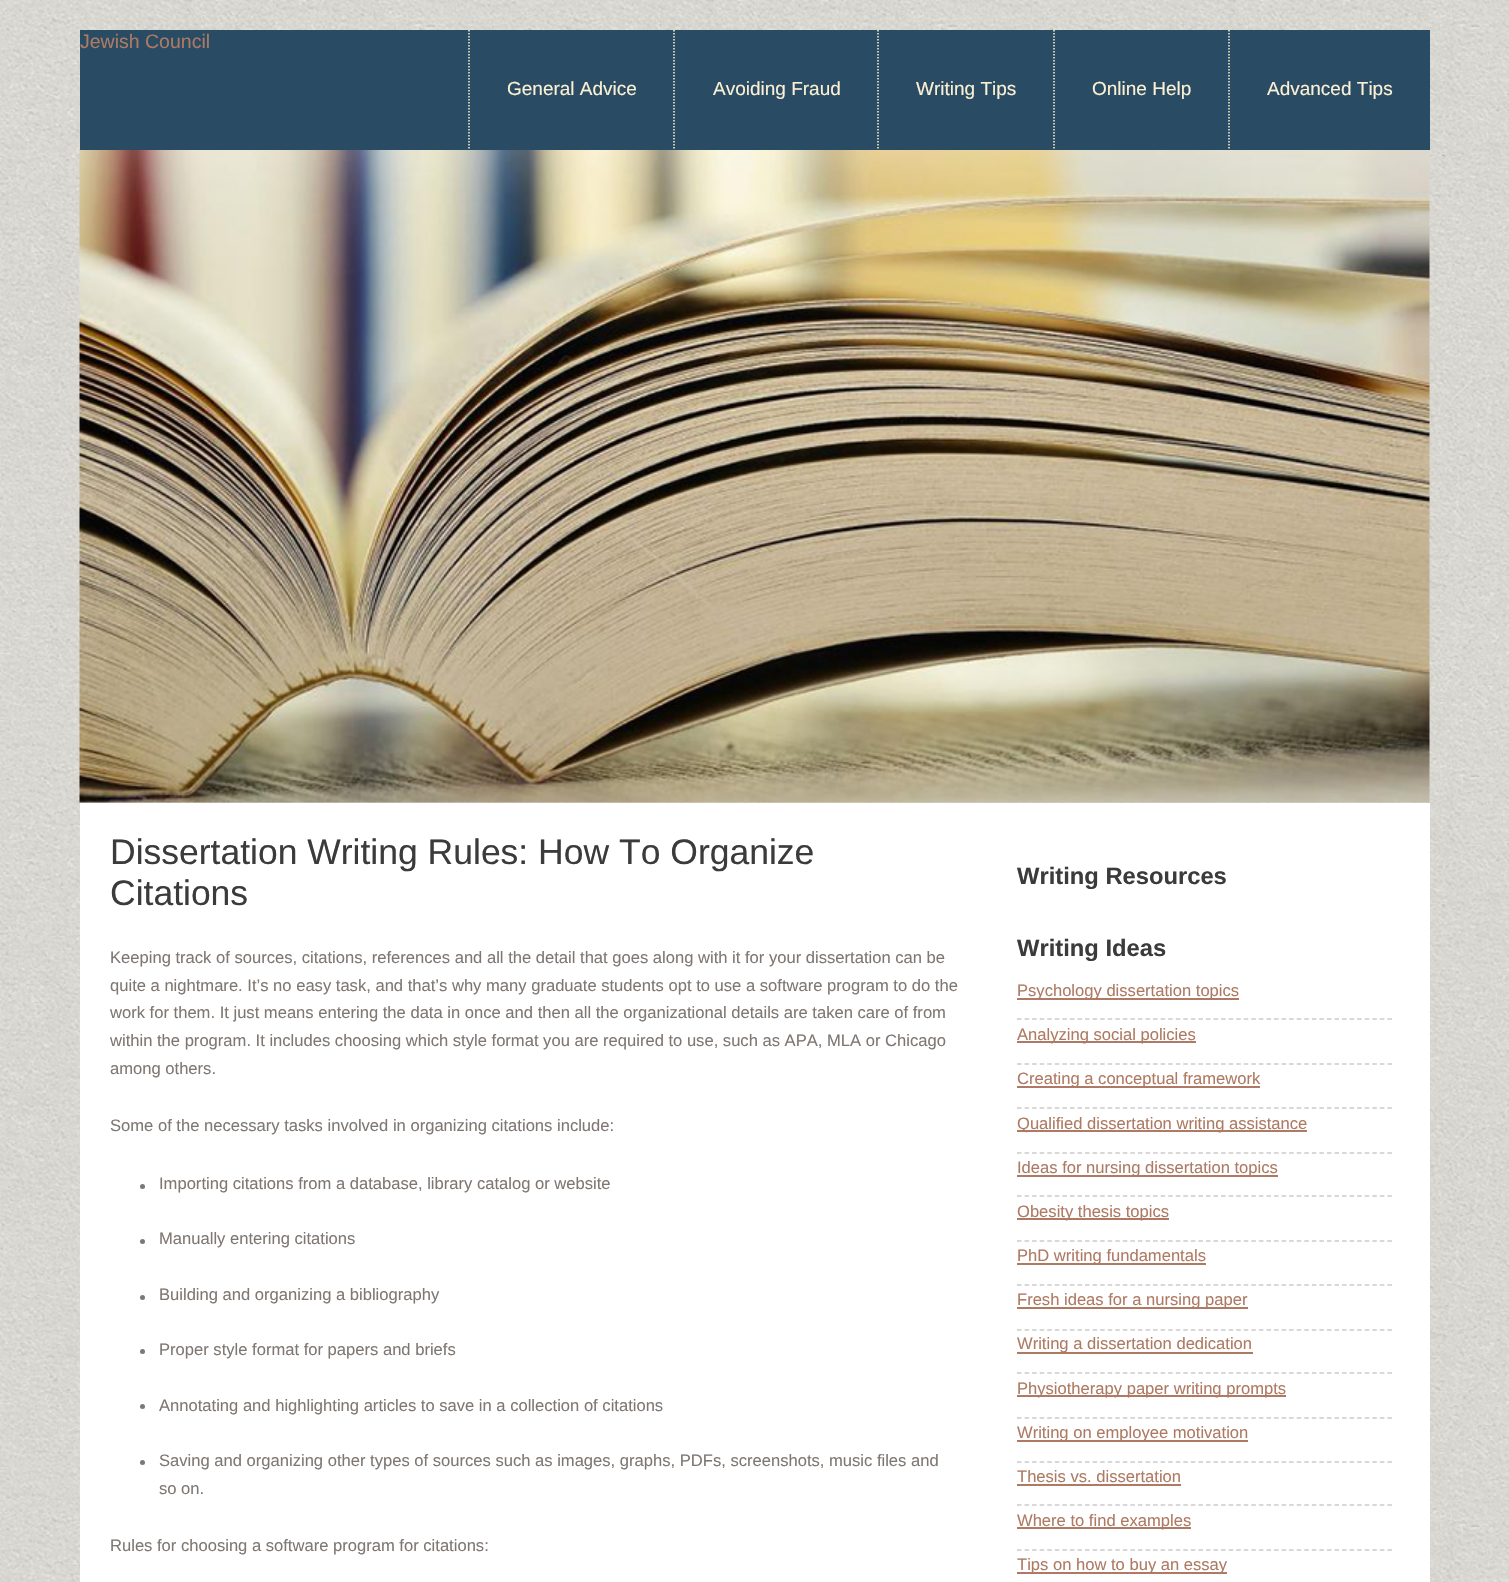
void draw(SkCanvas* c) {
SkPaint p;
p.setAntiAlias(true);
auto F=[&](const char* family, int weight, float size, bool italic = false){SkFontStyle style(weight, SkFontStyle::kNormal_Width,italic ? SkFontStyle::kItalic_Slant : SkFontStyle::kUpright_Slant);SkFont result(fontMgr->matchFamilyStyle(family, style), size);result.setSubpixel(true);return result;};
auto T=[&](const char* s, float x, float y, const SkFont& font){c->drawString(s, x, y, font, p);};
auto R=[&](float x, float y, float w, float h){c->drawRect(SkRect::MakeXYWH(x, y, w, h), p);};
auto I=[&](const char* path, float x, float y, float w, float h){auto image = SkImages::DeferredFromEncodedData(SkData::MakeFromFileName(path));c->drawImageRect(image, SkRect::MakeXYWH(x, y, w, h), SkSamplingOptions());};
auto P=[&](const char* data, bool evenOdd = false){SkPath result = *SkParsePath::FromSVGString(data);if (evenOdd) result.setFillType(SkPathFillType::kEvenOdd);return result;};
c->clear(0xffffffff);
I("1.png",0,0,1509,1582);
p.setColor(0xff294c64);
R(80,30,1350,120);
auto f1 = F("Liberation Sans",400,19.5);
p.setColor(0xffae7a63);
T("Jewish Council",80,48,f1);
p.setStroke(true);
p.setStrokeWidth(1.5);
p.setColor(0xfffbf0d3);
p.setPathEffect(SkDashPathEffect::Make({{1.5f,1.5f}}, 0));
c->drawPath(P("M469 30v120"),p);
p.setPathEffect(nullptr);
auto f2 = F("Liberation Sans",400,19);
p.setStroke(false);
T("General Advice",507,95,f2);
p.setStroke(true);
p.setPathEffect(SkDashPathEffect::Make({{1.5f,1.5f}}, 0));
c->drawPath(P("M674 30v120"),p);
p.setPathEffect(nullptr);
p.setStroke(false);
T("Avoiding Fraud",713,95,f2);
p.setStroke(true);
p.setPathEffect(SkDashPathEffect::Make({{1.5f,1.5f}}, 0));
c->drawPath(P("M878 30v120"),p);
p.setPathEffect(nullptr);
p.setStroke(false);
T("Writing Tips",916,95,f2);
p.setStroke(true);
p.setPathEffect(SkDashPathEffect::Make({{1.5f,1.5f}}, 0));
c->drawPath(P("M1054 30v120"),p);
p.setPathEffect(nullptr);
p.setStroke(false);
T("Online Help",1092,95,f2);
p.setStroke(true);
p.setPathEffect(SkDashPathEffect::Make({{1.5f,1.5f}}, 0));
c->drawPath(P("M1229 30v120"),p);
p.setPathEffect(nullptr);
p.setStroke(false);
T("Advanced Tips",1267,95,f2);
I("2.png",79,150,1351,653);
p.setColor(0xffffffff);
R(80,803,1350,779);
auto f3 = F("Liberation Sans",400,35.5);
p.setColor(0xff3b3b3b);
T("Dissertation Writing Rules: How To Organize",110,864,f3);
T("Citations",110,905,f3);
auto f4 = F("Liberation Sans",400,16.58);
p.setColor(0xff7f7772);
T("Keeping track of sources, citations, references and all the detail that goes along with it for your dissertation can be",110,963,f4);
T("quite a nightmare. It’s no easy task, and that’s why many graduate students opt to use a software program to do the",110,991,f4);
T("work for them. It just means entering the data in once and then all the organizational details are taken care of from",110,1018,f4);
T("within the program. It includes choosing which style format you are required to use, such as APA, MLA or Chicago",110,1046,f4);
T("among others.",110,1074,f4);
T("Some of the necessary tasks involved in organizing citations include:",110,1131,f4);
c->drawCircle(142.5,1186.5,2.5,p);
T("Importing citations from a database, library catalog or website",159,1189,f4);
c->drawCircle(142.5,1241.5,2.5,p);
T("Manually entering citations",159,1244,f4);
c->drawCircle(142.5,1297.5,2.5,p);
T("Building and organizing a bibliography",159,1300,f4);
c->drawCircle(142.5,1351.5,2.5,p);
T("Proper style format for papers and briefs",159,1355,f4);
c->drawCircle(142.5,1406.5,2.5,p);
T("Annotating and highlighting articles to save in a collection of citations",159,1411,f4);
c->drawCircle(142.5,1462.5,2.5,p);
T("Saving and organizing other types of sources such as images, graphs, PDFs, screenshots, music files and",159,1466,f4);
T("so on.",159,1494,f4);
T("Rules for choosing a software program for citations:",110,1551,f4);
auto f5 = F("Liberation Sans",700,23.75);
p.setColor(0xff3b3b3b);
T("Writing Resources",1017,884,f5);
T("Writing Ideas",1017,956,f5);
p.setStroke(true);
p.setColor(0xffcccccc);
p.setPathEffect(SkDashPathEffect::Make({{4.5f,3.06f}}, 0));
c->drawPath(P("M1017 1019h375"),p);
p.setPathEffect(nullptr);
p.setStroke(false);
p.setColor(0xffae7a63);
R(1017,998,222,2);
T("Psychology dissertation topics",1017,996,f4);
p.setStroke(true);
p.setColor(0xffcccccc);
p.setPathEffect(SkDashPathEffect::Make({{4.5f,3.06f}}, 0));
c->drawPath(P("M1017 1064h375"),p);
p.setPathEffect(nullptr);
p.setStroke(false);
p.setColor(0xffae7a63);
R(1017,1041,179,2);
T("Analyzing social policies",1017,1040,f4);
p.setStroke(true);
p.setColor(0xffcccccc);
p.setPathEffect(SkDashPathEffect::Make({{4.5f,3.06f}}, 0));
c->drawPath(P("M1017 1108h375"),p);
p.setPathEffect(nullptr);
p.setStroke(false);
p.setColor(0xffae7a63);
R(1017,1086,243,2);
T("Creating a conceptual framework",1017,1084,f4);
p.setStroke(true);
p.setColor(0xffcccccc);
p.setPathEffect(SkDashPathEffect::Make({{4.5f,3.06f}}, 0));
c->drawPath(P("M1017 1153h375"),p);
p.setPathEffect(nullptr);
p.setStroke(false);
p.setColor(0xffae7a63);
R(1017,1130,290,2);
T("Qualified dissertation writing assistance",1017,1129,f4);
p.setStroke(true);
p.setColor(0xffcccccc);
p.setPathEffect(SkDashPathEffect::Make({{4.5f,3.06f}}, 0));
c->drawPath(P("M1017 1196h375"),p);
p.setPathEffect(nullptr);
p.setStroke(false);
p.setColor(0xffae7a63);
R(1017,1175,261,2);
T("Ideas for nursing dissertation topics",1017,1173,f4);
p.setStroke(true);
p.setColor(0xffcccccc);
p.setPathEffect(SkDashPathEffect::Make({{4.5f,3.06f}}, 0));
c->drawPath(P("M1017 1241h375"),p);
p.setPathEffect(nullptr);
p.setStroke(false);
p.setColor(0xffae7a63);
R(1017,1218,152,2);
T("Obesity thesis topics",1017,1217,f4);
p.setStroke(true);
p.setColor(0xffcccccc);
p.setPathEffect(SkDashPathEffect::Make({{4.5f,3.06f}}, 0));
c->drawPath(P("M1017 1285h375"),p);
p.setPathEffect(nullptr);
p.setStroke(false);
p.setColor(0xffae7a63);
R(1017,1263,189,2);
T("PhD writing fundamentals",1017,1261,f4);
p.setStroke(true);
p.setColor(0xffcccccc);
p.setPathEffect(SkDashPathEffect::Make({{4.5f,3.06f}}, 0));
c->drawPath(P("M1017 1330h375"),p);
p.setPathEffect(nullptr);
p.setStroke(false);
p.setColor(0xffae7a63);
R(1017,1307,231,2);
T("Fresh ideas for a nursing paper",1017,1305,f4);
p.setStroke(true);
p.setColor(0xffcccccc);
p.setPathEffect(SkDashPathEffect::Make({{4.5f,3.06f}}, 0));
c->drawPath(P("M1017 1373h375"),p);
p.setPathEffect(nullptr);
p.setStroke(false);
p.setColor(0xffae7a63);
R(1017,1352,236,2);
T("Writing a dissertation dedication",1017,1349,f4);
p.setStroke(true);
p.setColor(0xffcccccc);
p.setPathEffect(SkDashPathEffect::Make({{4.5f,3.06f}}, 0));
c->drawPath(P("M1017 1418h375"),p);
p.setPathEffect(nullptr);
p.setStroke(false);
p.setColor(0xffae7a63);
R(1017,1395,269,2);
T("Physiotherapy paper writing prompts",1017,1394,f4);
p.setStroke(true);
p.setColor(0xffcccccc);
p.setPathEffect(SkDashPathEffect::Make({{4.5f,3.06f}}, 0));
c->drawPath(P("M1017 1462h375"),p);
p.setPathEffect(nullptr);
p.setStroke(false);
p.setColor(0xffae7a63);
R(1017,1440,231,2);
T("Writing on employee motivation",1017,1438,f4);
p.setStroke(true);
p.setColor(0xffcccccc);
p.setPathEffect(SkDashPathEffect::Make({{4.5f,3.06f}}, 0));
c->drawPath(P("M1017 1505h375"),p);
p.setPathEffect(nullptr);
p.setStroke(false);
p.setColor(0xffae7a63);
T("Thesis vs. dissertation",1017,1482,f4);
R(1017,1484,164,2);
p.setStroke(true);
p.setColor(0xffcccccc);
p.setPathEffect(SkDashPathEffect::Make({{4.5f,3.06f}}, 0));
c->drawPath(P("M1017 1550h375"),p);
p.setPathEffect(nullptr);
p.setStroke(false);
p.setColor(0xffae7a63);
R(1017,1527,174,2);
T("Where to find examples",1017,1526,f4);
R(1017,1572,210,2);
T("Tips on how to buy an essay",1017,1570,f4);
}
